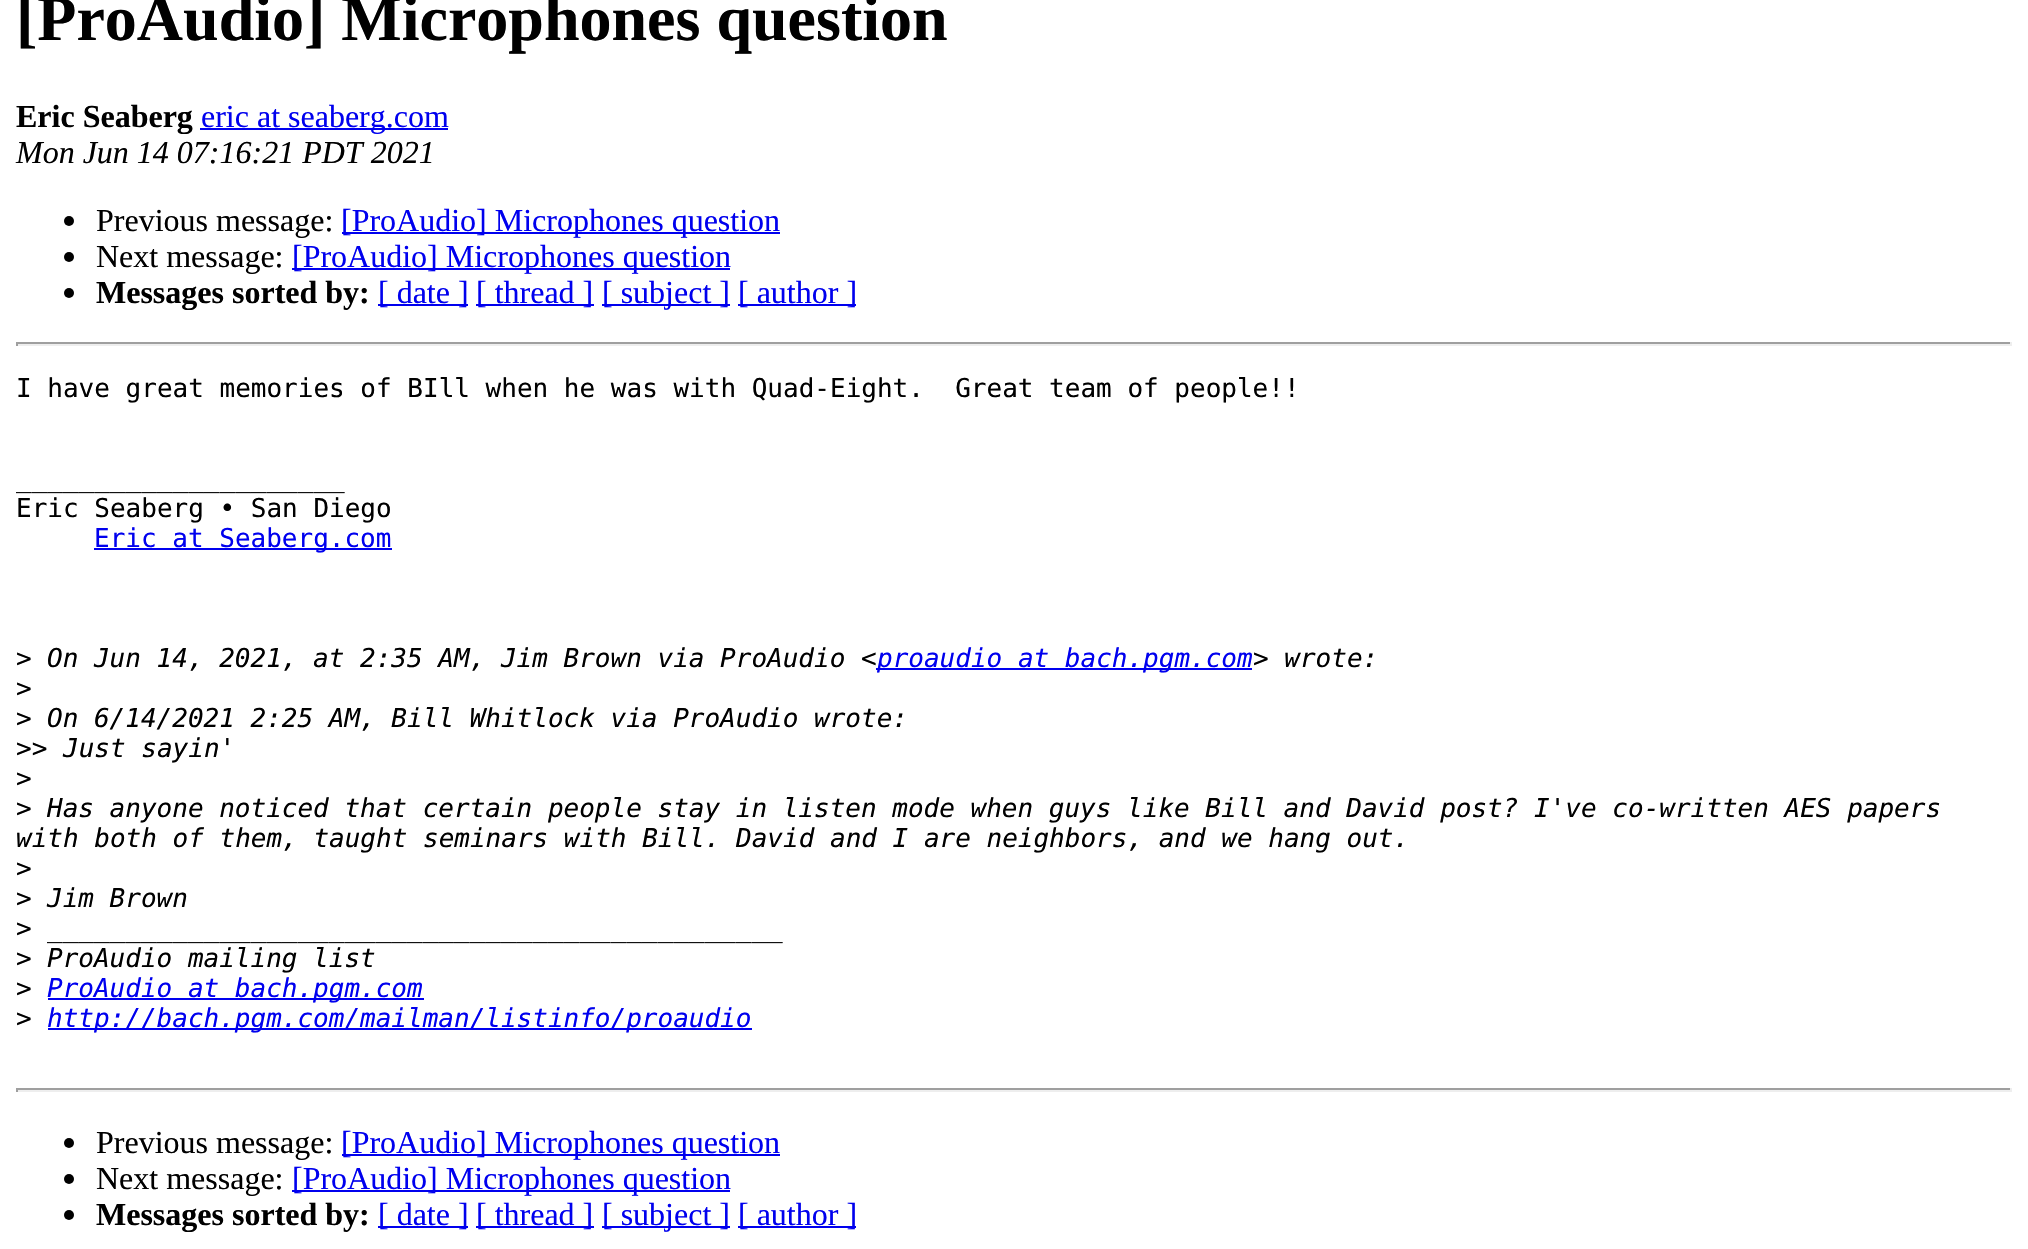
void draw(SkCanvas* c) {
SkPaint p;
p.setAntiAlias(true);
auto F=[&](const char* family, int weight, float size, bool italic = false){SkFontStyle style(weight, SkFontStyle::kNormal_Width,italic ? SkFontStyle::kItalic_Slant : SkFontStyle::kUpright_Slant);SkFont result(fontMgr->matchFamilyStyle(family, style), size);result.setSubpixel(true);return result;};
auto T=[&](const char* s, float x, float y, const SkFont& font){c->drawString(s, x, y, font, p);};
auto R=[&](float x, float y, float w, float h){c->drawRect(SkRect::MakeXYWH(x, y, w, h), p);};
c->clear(0xffffffff);
auto f1 = F("Liberation Serif",700,64);
p.setColor(0xff000000);
T("[ProAudio] Microphones question",16,40,f1);
auto f2 = F("Liberation Serif",700,32);
T("Eric Seaberg",16,127,f2);
p.setColor(0xff0000ee);
R(200,128,248,2);
auto f3 = F("Liberation Serif",400,32);
T("eric at seaberg.com",201,127,f3);
auto f4 = F("Liberation Serif",400,32,true);
p.setColor(0xff000000);
T("Mon Jun 14 07:16:21 PDT 2021",16,163,f4);
c->drawCircle(69,221,5,p);
T("Previous message:",96,231,f3);
p.setColor(0xff0000ee);
R(342,232,438,2);
T("[ProAudio] Microphones question",341,231,f3);
p.setColor(0xff000000);
c->drawCircle(69,257,5,p);
T("Next message:",96,267,f3);
p.setColor(0xff0000ee);
R(292,268,438,2);
T("[ProAudio] Microphones question",292,267,f3);
p.setColor(0xff000000);
c->drawCircle(69,293,5,p);
T("Messages sorted by:",96,303,f2);
p.setColor(0xff0000ee);
R(378,304,90,2);
T("[ date ]",378,303,f3);
R(476,304,118,2);
T("[ thread ]",476,303,f3);
R(602,304,128,2);
T("[ subject ]",602,303,f3);
R(738,304,118,2);
T("[ author ]",738,303,f3);
p.setColor(0xff9f9f9f);
R(16,342,1996,2);
p.setColor(0xffeeeeee);
R(2010,342,2,4);
R(16,344,1996,2);
p.setColor(0xff9f9f9f);
R(16,342,2,4);
auto f5 = F("DejaVu Sans Mono",400,26);
p.setColor(0xff000000);
T("I have great memories of BIll when he was with Quad-Eight.  Great team of people!!",16,397,f5);
T("_____________________",16,487,f5);
T("Eric Seaberg • San Diego",16,517,f5);
p.setColor(0xff0000ee);
R(94,548,298,2);
T("Eric at Seaberg.com",94,547,f5);
p.setColor(0xff000000);
T(">",16,667,f5);
auto f6 = F("DejaVu Sans Mono",400,26,true);
T("On Jun 14, 2021, at 2:35 AM, Jim Brown via ProAudio <",47,667,f6);
p.setColor(0xff0000ee);
R(876,668,376,2);
T("proaudio at bach.pgm.com",877,667,f6);
p.setColor(0xff000000);
T("> wrote:",1253,667,f6);
T(">",16,697,f5);
T(">",16,727,f5);
T("On 6/14/2021 2:25 AM, Bill Whitlock via ProAudio wrote:",47,727,f6);
T(">>",16,757,f5);
T("Just sayin'",63,757,f6);
T(">",16,787,f5);
T(">",16,817,f5);
T("Has anyone noticed that certain people stay in listen mode when guys like Bill and David post? I've co-written AES papers",47,817,f6);
T("with both of them, taught seminars with Bill. David and I are neighbors, and we hang out.",16,847,f6);
T(">",16,877,f5);
T(">",16,907,f5);
T("Jim Brown",47,907,f6);
T(">",16,937,f5);
T("_______________________________________________",47,937,f6);
T(">",16,967,f5);
T("ProAudio mailing list",47,967,f6);
T(">",16,997,f5);
p.setColor(0xff0000ee);
R(48,998,376,2);
T("ProAudio at bach.pgm.com",47,997,f6);
p.setColor(0xff000000);
T(">",16,1027,f5);
p.setColor(0xff0000ee);
R(48,1028,704,2);
T("http://bach.pgm.com/mailman/listinfo/proaudio",47,1027,f6);
p.setColor(0xff9f9f9f);
R(16,1088,1996,2);
p.setColor(0xffeeeeee);
R(2010,1088,2,4);
R(16,1090,1996,2);
p.setColor(0xff9f9f9f);
R(16,1088,2,4);
p.setColor(0xff000000);
c->drawCircle(69,1143,5,p);
T("Previous message:",96,1153,f3);
p.setColor(0xff0000ee);
R(342,1154,438,2);
T("[ProAudio] Microphones question",341,1153,f3);
p.setColor(0xff000000);
c->drawCircle(69,1179,5,p);
T("Next message:",96,1189,f3);
p.setColor(0xff0000ee);
R(292,1190,438,2);
T("[ProAudio] Microphones question",292,1189,f3);
p.setColor(0xff000000);
c->drawCircle(69,1215,5,p);
T("Messages sorted by:",96,1225,f2);
p.setColor(0xff0000ee);
R(378,1226,90,2);
T("[ date ]",378,1225,f3);
R(476,1226,118,2);
T("[ thread ]",476,1225,f3);
R(602,1226,128,2);
T("[ subject ]",602,1225,f3);
R(738,1226,118,2);
T("[ author ]",738,1225,f3);
}
